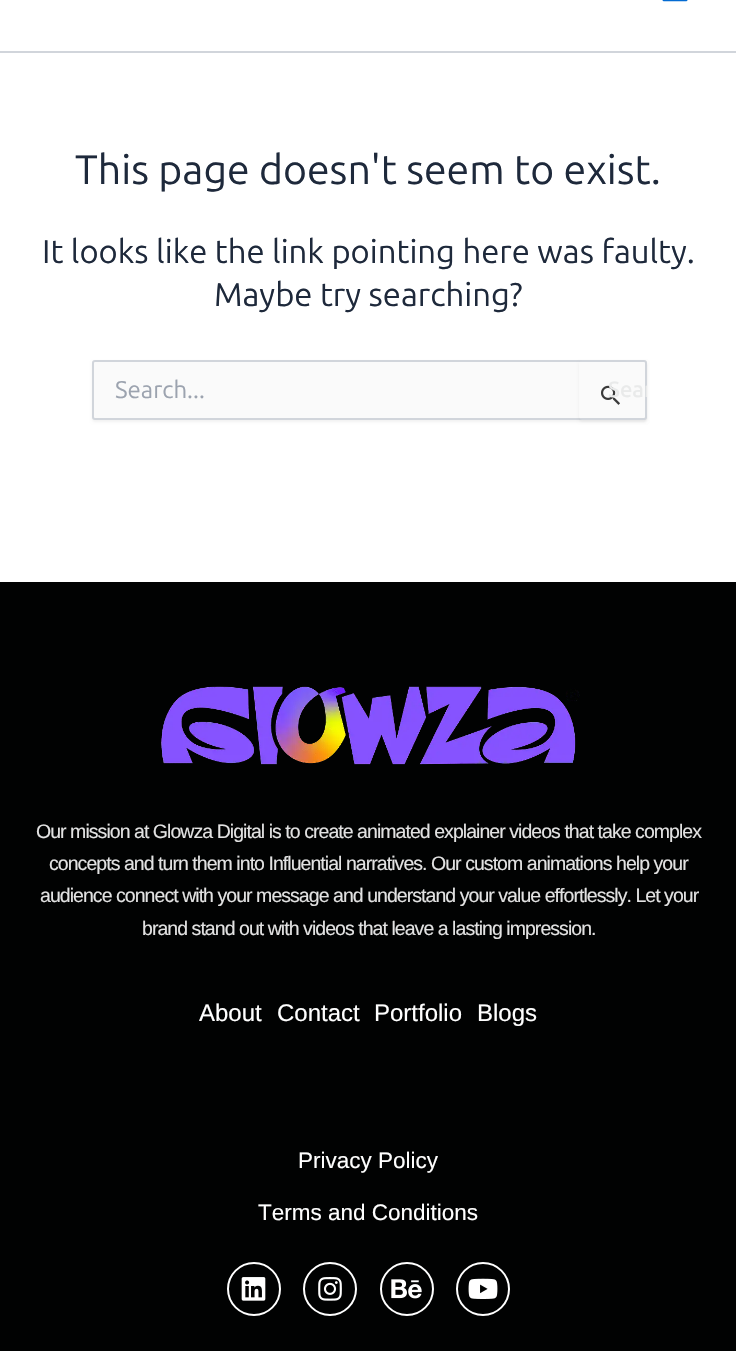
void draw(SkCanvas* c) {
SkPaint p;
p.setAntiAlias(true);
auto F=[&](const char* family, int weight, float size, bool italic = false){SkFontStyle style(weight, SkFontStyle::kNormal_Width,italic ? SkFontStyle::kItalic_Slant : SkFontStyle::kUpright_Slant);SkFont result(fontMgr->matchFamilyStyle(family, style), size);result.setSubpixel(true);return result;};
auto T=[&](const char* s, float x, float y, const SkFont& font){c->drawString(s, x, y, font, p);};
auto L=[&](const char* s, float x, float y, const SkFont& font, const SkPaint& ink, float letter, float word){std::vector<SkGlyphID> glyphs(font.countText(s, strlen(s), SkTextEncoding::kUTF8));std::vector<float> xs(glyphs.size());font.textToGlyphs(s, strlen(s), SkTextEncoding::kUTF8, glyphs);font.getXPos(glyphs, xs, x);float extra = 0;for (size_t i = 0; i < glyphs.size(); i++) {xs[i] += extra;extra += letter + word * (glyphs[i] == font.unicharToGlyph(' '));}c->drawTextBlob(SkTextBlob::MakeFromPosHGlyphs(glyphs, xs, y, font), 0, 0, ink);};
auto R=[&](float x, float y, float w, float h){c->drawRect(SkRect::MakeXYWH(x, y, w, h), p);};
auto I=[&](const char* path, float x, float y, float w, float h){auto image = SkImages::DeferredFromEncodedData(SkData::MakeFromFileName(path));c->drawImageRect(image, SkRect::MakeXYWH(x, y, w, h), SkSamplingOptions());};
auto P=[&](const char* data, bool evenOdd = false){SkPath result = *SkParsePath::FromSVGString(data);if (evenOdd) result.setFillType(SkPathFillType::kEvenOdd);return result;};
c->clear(0xffffffff);
p.setColor(0xffd1d5db);
R(0,51,736,2);
I("1.png",662,0,26,2);
auto f1 = F("Ubuntu",400,41);
p.setColor(0xff1e293b);
T("This page doesn't seem to exist.",75,184,f1);
auto f2 = F("Ubuntu",400,32.8);
T("It looks like the link pointing here was faulty.",42,263,f2);
T("Maybe try searching?",214,306,f2);
p.setColor(0x0d000000);
p.setMaskFilter(SkMaskFilter::MakeBlur(kNormal_SkBlurStyle, 1.5));
c->drawRoundRect(SkRect::MakeXYWH(92,362,555,60),3,3,p);
p.setMaskFilter(nullptr);
p.setColor(0xfffafafa);
c->drawRoundRect(SkRect::MakeXYWH(93,361,553,58),2,2,p);
p.setStroke(true);
p.setStrokeWidth(2);
p.setColor(0xffd1d5db);
c->drawRoundRect(SkRect::MakeXYWH(93,361,553,58),2,2,p);
auto f3 = F("Ubuntu",400,24);
p.setStroke(false);
p.setColor(0xff9ca3af);
T("Search...",115,398,f3);
I("2.png",601,385,19,20);
c->save();
c->clipPath(P("M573 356h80v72h-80zm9 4h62c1.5 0 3 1.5 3 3v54c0 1.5-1.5 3-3 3h-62c-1.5 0-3-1.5-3-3v-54c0-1.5 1.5-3 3-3z",true),true);
p.setColor(0x0d000000);
p.setMaskFilter(SkMaskFilter::MakeBlur(kNormal_SkBlurStyle, 1.5));
c->drawRoundRect(SkRect::MakeXYWH(579,362,68,60),3,3,p);
p.setMaskFilter(nullptr);
c->restore();
c->save();
c->clipPath(P("M582 360h62c1.5 0 3 1.5 3 3v54c0 1.5-1.5 3-3 3h-62c-1.5 0-3-1.5-3-3v-54c0-1.5 1.5-3 3-3z"),true);
auto f4 = F("Ubuntu",500,22);
p.setColor(0xffe9eaea);
T("Sear",608,397,f4);
c->restore();
p.setColor(0xff010202);
R(0,582,736,769);
I("3.png",161,686,419,79);
auto f5 = F("Liberation Sans",400,19.5);
p.setColor(0xffe2e2e2);
L("Our mission at Glowza Digital is to create animated explainer videos that take complex",36,838,f5,p,-.95,0);
L("concepts and turn them into Influential narratives. Our custom animations help your",49,870,f5,p,-.95,0);
L("audience connect with your message and understand your value effortlessly. Let your",40,902,f5,p,-.95,0);
L("brand stand out with videos that leave a lasting impression.",142,935,f5,p,-.95,0);
auto f6 = F("Liberation Sans",400,24);
p.setColor(0xffffffff);
T("About",199,1021,f6);
T("Contact",277,1021,f6);
T("Portfolio",374,1021,f6);
T("Blogs",477,1021,f6);
auto f7 = F("Liberation Sans",400,22.5);
T("Privacy Policy",298,1168,f7);
T("Terms and Conditions",258,1220,f7);
p.setStroke(true);
c->drawCircle(254,1289,26,p);
I("4.png",241,1277,25,24);
c->drawCircle(330,1289,26,p);
I("5.png",318,1277,24,24);
c->drawCircle(407,1289,26,p);
I("6.png",391,1279,31,20);
c->drawCircle(483,1289,26,p);
I("7.png",468,1278,30,21);
}
